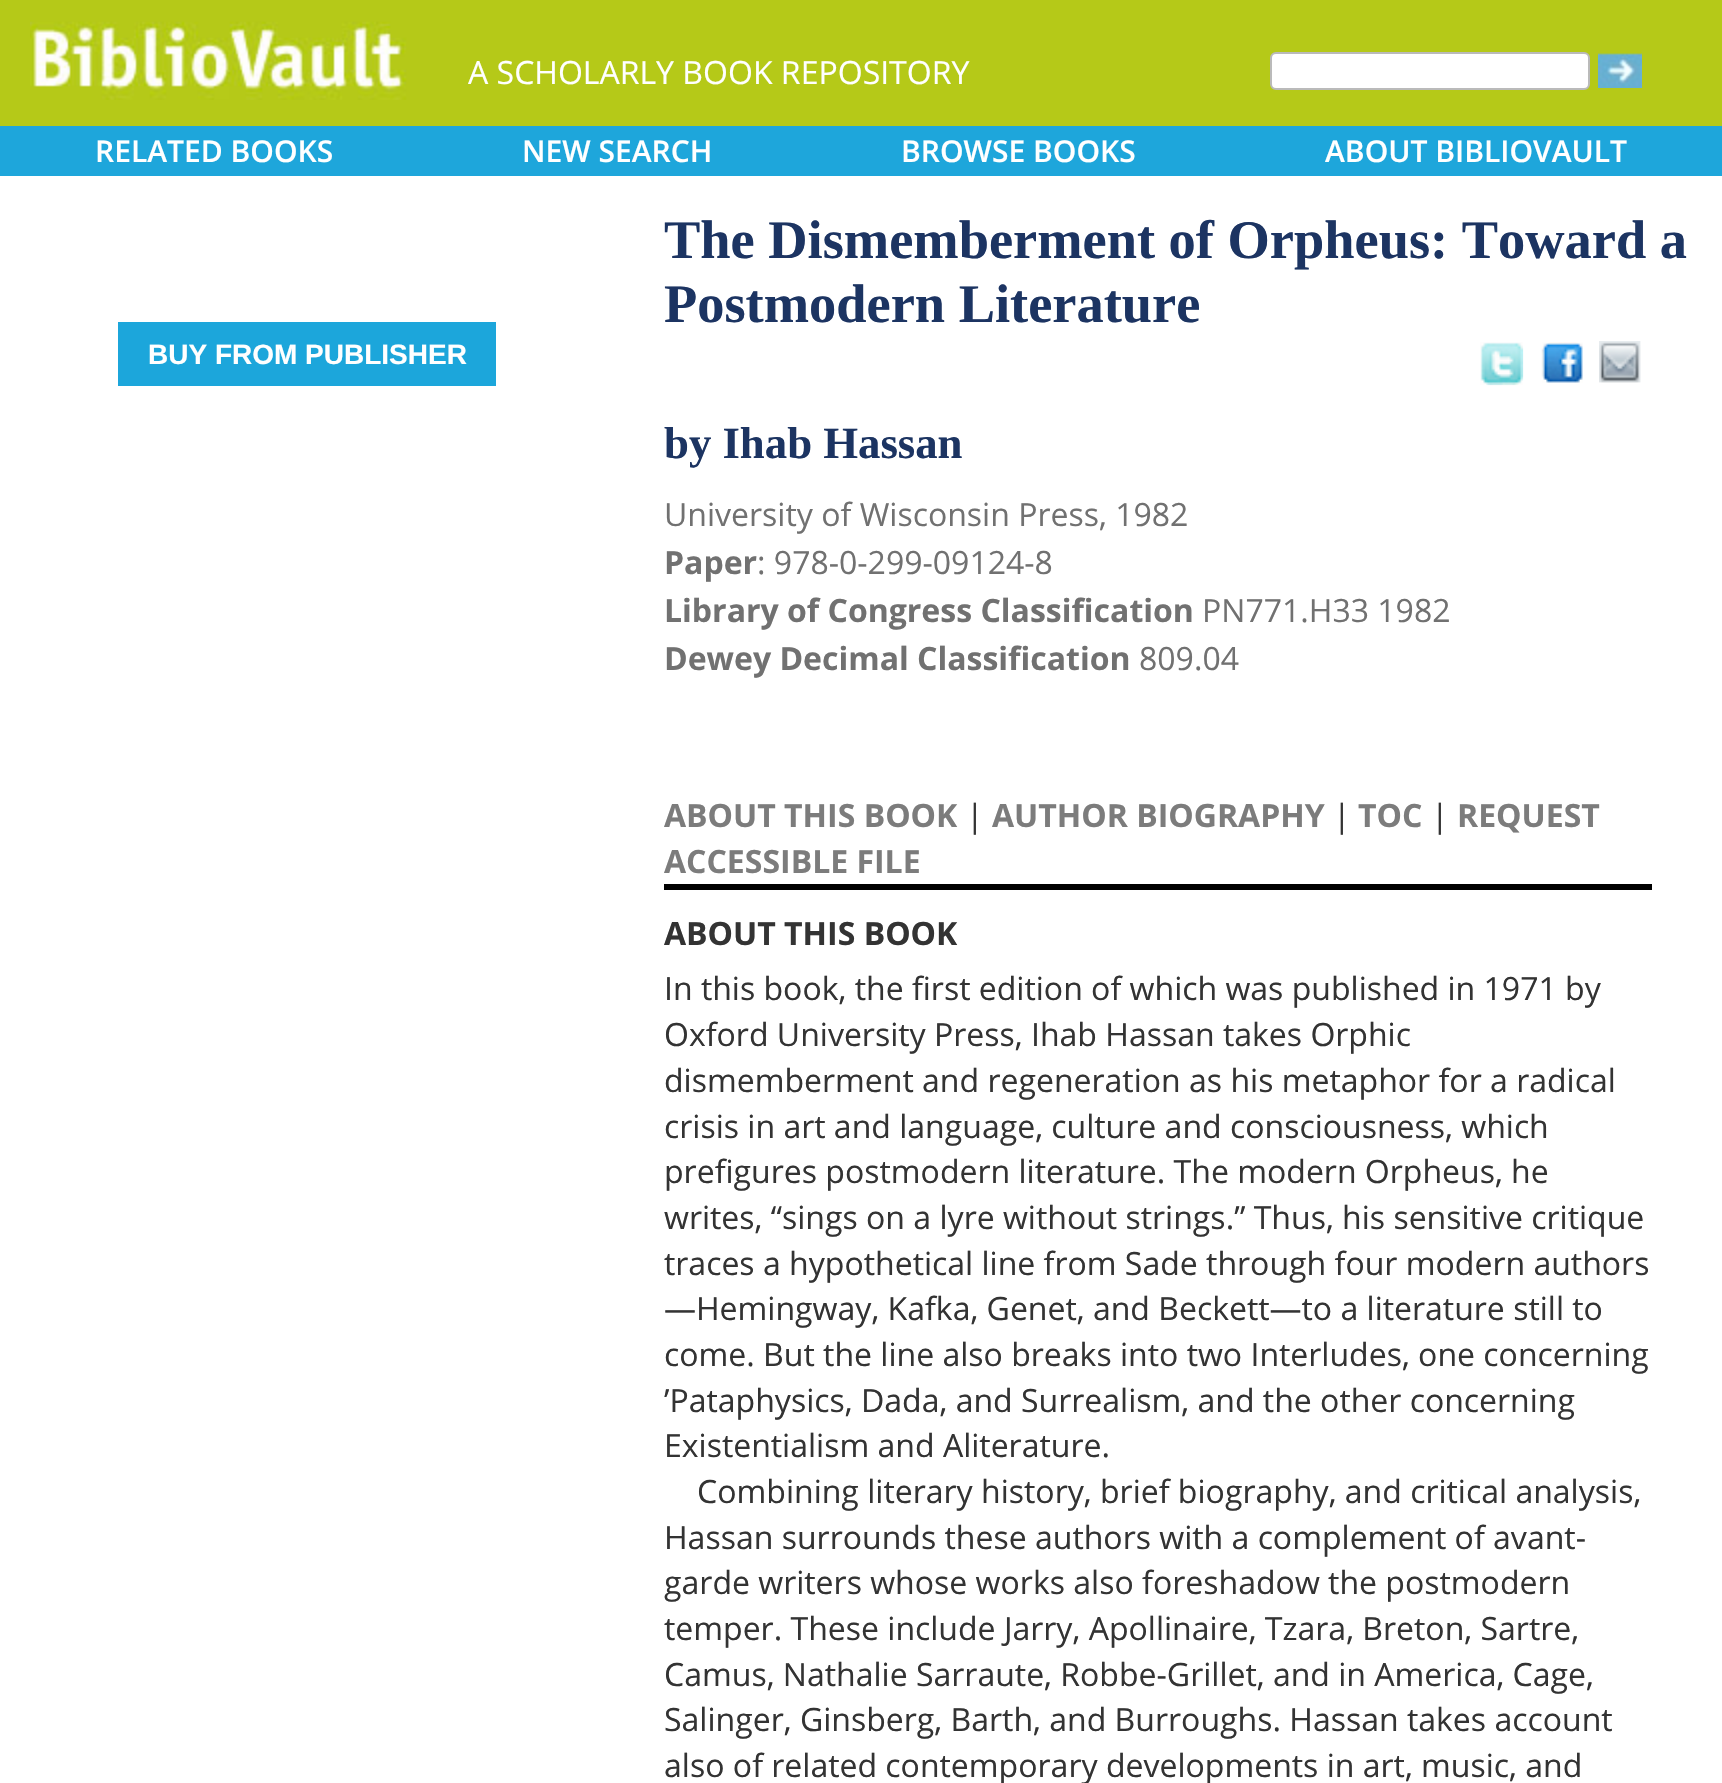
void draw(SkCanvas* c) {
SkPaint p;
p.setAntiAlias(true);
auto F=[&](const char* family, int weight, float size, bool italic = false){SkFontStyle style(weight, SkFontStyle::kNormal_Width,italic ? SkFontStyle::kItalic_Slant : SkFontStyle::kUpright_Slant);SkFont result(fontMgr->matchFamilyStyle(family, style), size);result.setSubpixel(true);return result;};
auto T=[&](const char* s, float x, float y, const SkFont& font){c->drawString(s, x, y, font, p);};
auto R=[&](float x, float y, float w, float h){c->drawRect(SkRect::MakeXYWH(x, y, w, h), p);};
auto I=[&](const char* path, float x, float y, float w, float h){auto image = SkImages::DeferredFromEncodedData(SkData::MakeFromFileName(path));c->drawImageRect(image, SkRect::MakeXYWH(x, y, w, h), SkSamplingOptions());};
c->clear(0xffffffff);
p.setColor(0xffb5c918);
R(0,0,1722,126);
I("1.png",30,21,377,79);
auto f1 = F("Open Sans",400,32);
p.setColor(0xffffffff);
T("A SCHOLARLY BOOK REPOSITORY",468,84,f1);
c->drawRoundRect(SkRect::MakeXYWH(1271,53,318,36),5,5,p);
p.setStroke(true);
p.setStrokeWidth(2);
p.setColor(0xffbababa);
c->drawRoundRect(SkRect::MakeXYWH(1271,53,318,36),5,5,p);
I("2.png",1598,53,44,35);
p.setStroke(false);
p.setColor(0xff1ea6db);
R(0,126,1722,50);
auto f2 = F("Open Sans",600,30);
p.setColor(0xffffffff);
T("RELATED BOOKS",95,162,f2);
T("NEW SEARCH",522,162,f2);
T("BROWSE BOOKS",901,162,f2);
T("ABOUT BIBLIOVAULT",1325,162,f2);
p.setColor(0xff1ca6db);
R(118,322,378,64);
auto f3 = F("Liberation Sans",700,28);
p.setColor(0xffffffff);
T("BUY FROM PUBLISHER",148,364,f3);
auto f4 = F("Liberation Serif",700,54.4);
p.setColor(0xff1c3462);
T("The Dismemberment of Orpheus: Toward a",664,258,f4);
T("Postmodern Literature",664,322,f4);
I("3.png",1480,342,44,44);
I("4.png",1541,342,42,41);
I("5.png",1599,341,42,42);
auto f5 = F("Liberation Serif",700,44.75);
T("by Ihab Hassan",664,458,f5);
p.setColor(0xff717171);
T("University of Wisconsin Press, 1982",664,526,f1);
auto f6 = F("Open Sans",700,32);
T("Paper",664,574,f6);
T(": 978-0-299-09124-8",757,574,f1);
T("Library of Congress Classification",664,622,f6);
T("PN771.H33 1982",1202,622,f1);
T("Dewey Decimal Classification",664,670,f6);
T("809.04",1139,670,f1);
p.setColor(0xff7c7c7c);
T("ABOUT THIS BOOK",664,827,f6);
p.setColor(0xff333333);
T("|",966,827,f1);
p.setColor(0xff7c7c7c);
T("AUTHOR BIOGRAPHY",992,827,f6);
p.setColor(0xff333333);
T("|",1333,827,f1);
p.setColor(0xff7c7c7c);
T("TOC",1358,827,f6);
p.setColor(0xff333333);
T("|",1431,827,f1);
p.setColor(0xff7c7c7c);
T("REQUEST",1457,827,f6);
T("ACCESSIBLE FILE",664,873,f6);
p.setColor(0xff000000);
R(664,884,988,6);
p.setColor(0xff333333);
T("ABOUT THIS BOOK",664,945,f6);
T("In this book, the first edition of which was published in 1971 by",664,1000,f1);
T("Oxford University Press, Ihab Hassan takes Orphic",664,1046,f1);
T("dismemberment and regeneration as his metaphor for a radical",664,1092,f1);
T("crisis in art and language, culture and consciousness, which",664,1138,f1);
T("prefigures postmodern literature. The modern Orpheus, he",664,1183,f1);
T("writes, “sings on a lyre without strings.” Thus, his sensitive critique",664,1229,f1);
T("traces a hypothetical line from Sade through four modern authors",664,1275,f1);
T("—Hemingway, Kafka, Genet, and Beckett—to a literature still to",664,1320,f1);
T("come. But the line also breaks into two Interludes, one concerning",664,1366,f1);
T("’Pataphysics, Dada, and Surrealism, and the other concerning",664,1412,f1);
T("Existentialism and Aliterature.",664,1457,f1);
T("Combining literary history, brief biography, and critical analysis,",697,1503,f1);
T("Hassan surrounds these authors with a complement of avant-",664,1549,f1);
T("garde writers whose works also foreshadow the postmodern",664,1594,f1);
T("temper. These include Jarry, Apollinaire, Tzara, Breton, Sartre,",664,1640,f1);
T("Camus, Nathalie Sarraute, Robbe-Grillet, and in America, Cage,",664,1686,f1);
T("Salinger, Ginsberg, Barth, and Burroughs. Hassan takes account",664,1731,f1);
T("also of related contemporary developments in art, music, and",664,1777,f1);
}
